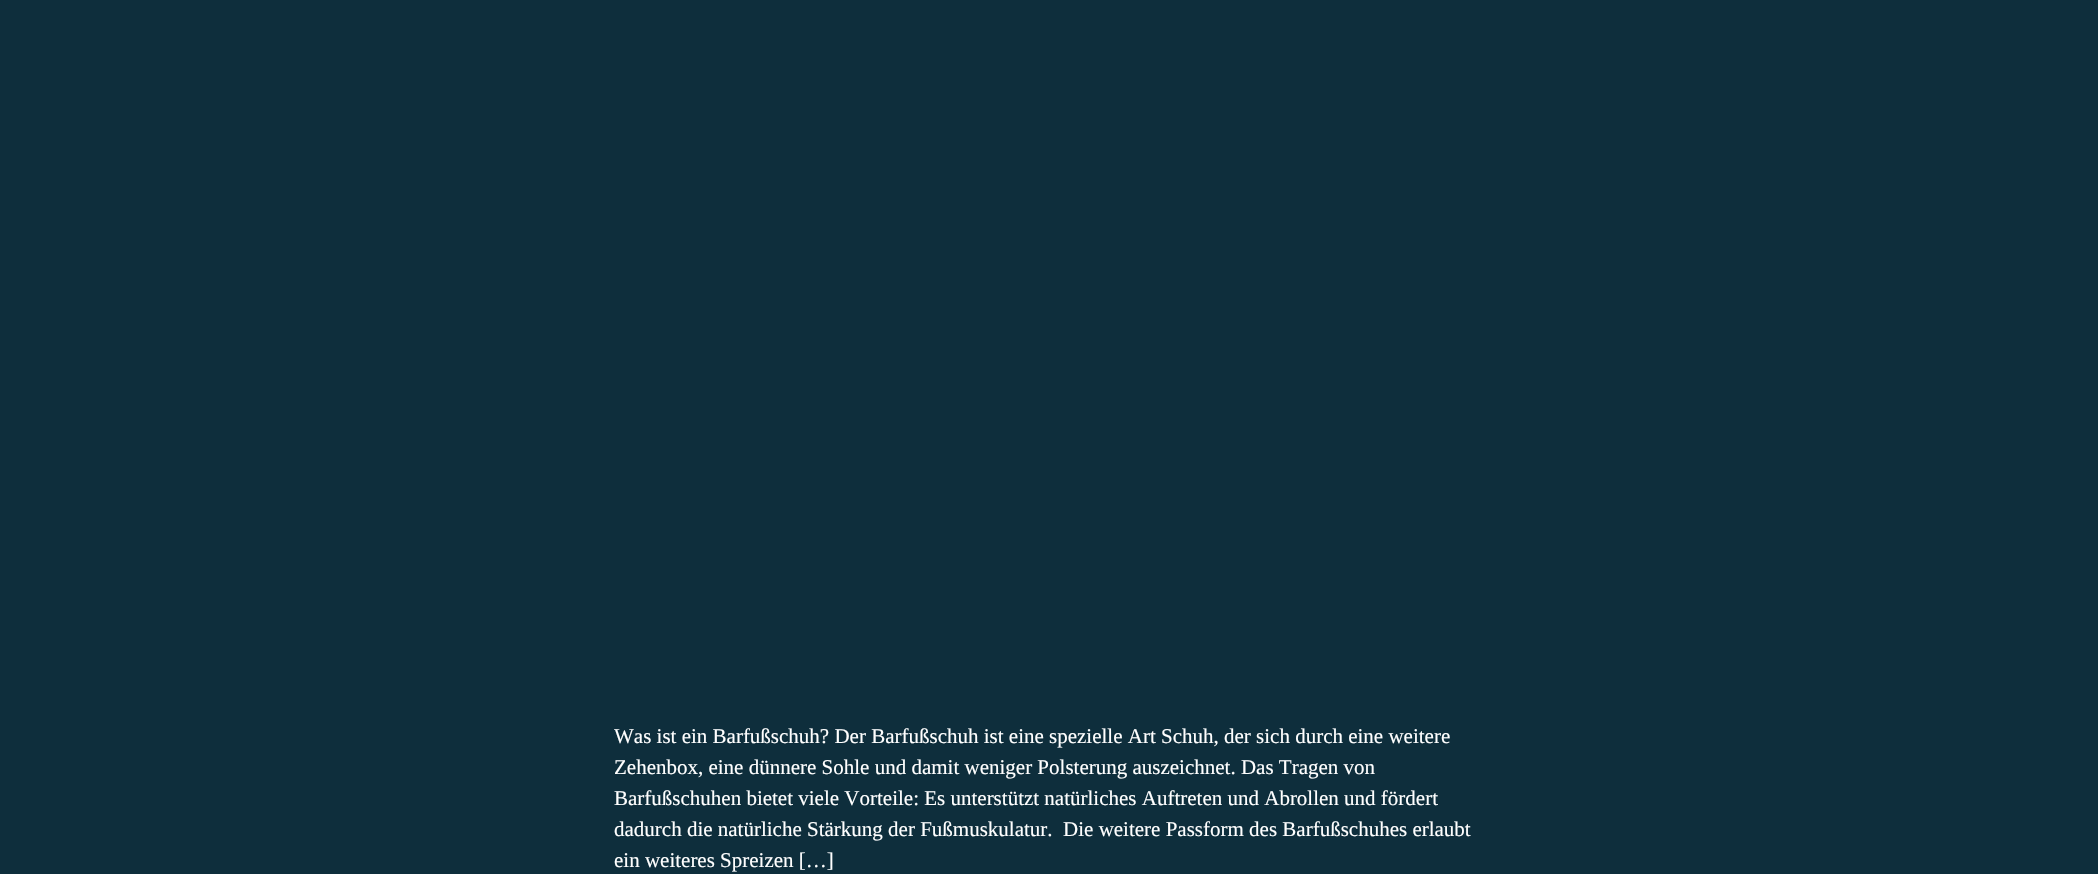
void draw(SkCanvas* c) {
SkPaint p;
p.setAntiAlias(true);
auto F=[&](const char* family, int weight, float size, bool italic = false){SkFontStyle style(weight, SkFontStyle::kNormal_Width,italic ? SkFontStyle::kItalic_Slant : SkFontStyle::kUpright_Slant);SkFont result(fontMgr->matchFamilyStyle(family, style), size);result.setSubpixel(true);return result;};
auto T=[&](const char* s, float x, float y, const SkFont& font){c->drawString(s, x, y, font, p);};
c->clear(0xff0e2e3c);
auto f1 = F("Liberation Serif",400,21);
p.setColor(0xffffffff);
T("Was ist ein Barfußschuh? Der Barfußschuh ist eine spezielle Art Schuh, der sich durch eine weitere",614,743,f1);
T("Zehenbox, eine dünnere Sohle und damit weniger Polsterung auszeichnet. Das Tragen von",614,774,f1);
T("Barfußschuhen bietet viele Vorteile: Es unterstützt natürliches Auftreten und Abrollen und fördert",614,805,f1);
T("dadurch die natürliche Stärkung der Fußmuskulatur.  Die weitere Passform des Barfußschuhes erlaubt",614,836,f1);
T("ein weiteres Spreizen […]",614,867,f1);
}
